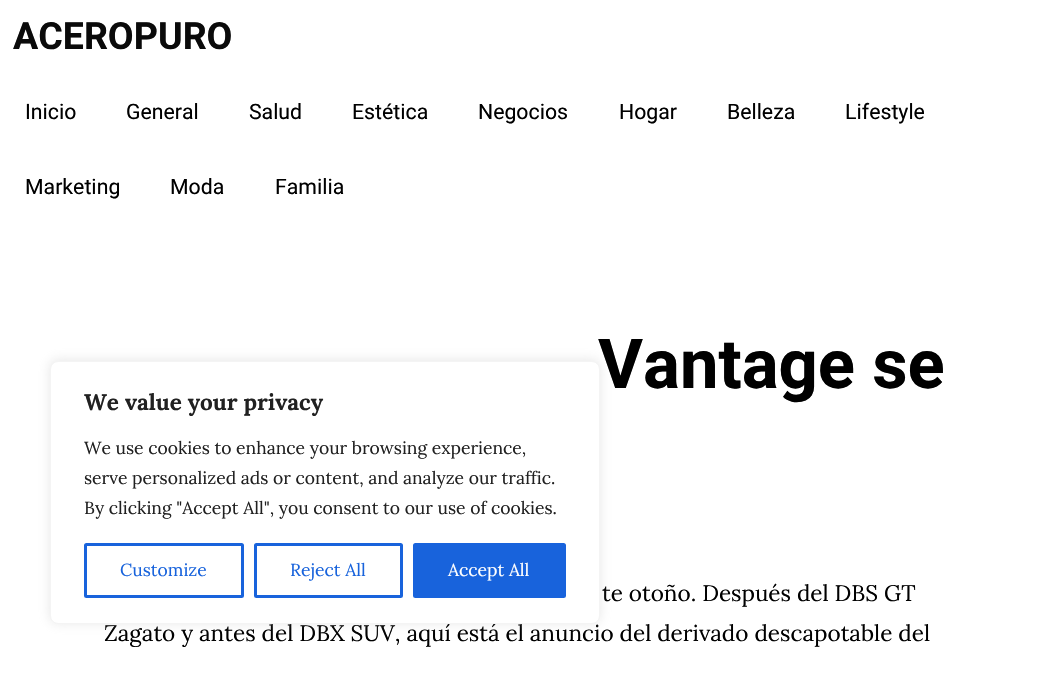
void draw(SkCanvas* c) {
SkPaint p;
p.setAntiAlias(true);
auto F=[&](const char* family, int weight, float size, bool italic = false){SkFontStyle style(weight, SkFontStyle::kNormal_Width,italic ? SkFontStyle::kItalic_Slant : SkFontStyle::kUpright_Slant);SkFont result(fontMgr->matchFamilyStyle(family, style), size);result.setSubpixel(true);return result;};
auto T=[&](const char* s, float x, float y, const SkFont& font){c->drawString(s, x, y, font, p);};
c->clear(0xffffffff);
auto f1 = F("Heebo",700,37.5);
p.setColor(0xff0a0a0a);
T("ACEROPURO",13,49,f1);
auto f2 = F("Heebo",400,21.25);
p.setColor(0xff000000);
T("Inicio",25,119,f2);
T("General",126,119,f2);
T("Salud",249,119,f2);
T("Estética",352,119,f2);
T("Negocios",478,119,f2);
T("Hogar",619,119,f2);
T("Belleza",727,119,f2);
T("Lifestyle",845,119,f2);
T("Marketing",25,194,f2);
T("Moda",170,194,f2);
T("Familia",275,194,f2);
auto f3 = F("Heebo",700,68.75);
T("Vantage se",598,388,f3);
auto f4 = F("Lora",400,22.5);
T("te otoño. Después del DBS GT",602,601,f4);
T("Zagato y antes del DBX SUV, aquí está el anuncio del derivado descapotable del",104,641,f4);
p.setColor(0x4dacabab);
p.setMaskFilter(SkMaskFilter::MakeBlur(kNormal_SkBlurStyle, 6));
c->drawRoundRect(SkRect::MakeXYWH(50,360,550,263),8,8,p);
p.setMaskFilter(nullptr);
p.setColor(0xffffffff);
c->drawRoundRect(SkRect::MakeXYWH(50.5,361.5,549,262),7.5,7.5,p);
p.setStroke(true);
p.setStrokeWidth(1);
p.setColor(0xfff4f4f4);
c->drawRoundRect(SkRect::MakeXYWH(50.5,361.5,549,262),7.5,7.5,p);
auto f5 = F("Lora",700,22.5);
p.setStroke(false);
p.setColor(0xff212121);
T("We value your privacy",84,410,f5);
auto f6 = F("Lora",400,17.5);
T("We use cookies to enhance your browsing experience,",84,454,f6);
T("serve personalized ads or content, and analyze our traffic.",84,484,f6);
T("By clicking \"Accept All\", you consent to our use of cookies.",84,514,f6);
p.setStroke(true);
p.setStrokeWidth(3);
p.setColor(0xff1863dc);
c->drawRoundRect(SkRect::MakeXYWH(85.5,544.5,157,52),1,1,p);
p.setStroke(false);
T("Customize",120,576,f6);
p.setStroke(true);
c->drawRoundRect(SkRect::MakeXYWH(255.5,544.5,146,52),1,1,p);
p.setStroke(false);
T("Reject All",290,576,f6);
c->drawRoundRect(SkRect::MakeXYWH(414.5,544.5,150,52),1,1,p);
p.setStroke(true);
c->drawRoundRect(SkRect::MakeXYWH(414.5,544.5,150,52),1,1,p);
p.setStroke(false);
p.setColor(0xffffffff);
T("Accept All",448,576,f6);
}
